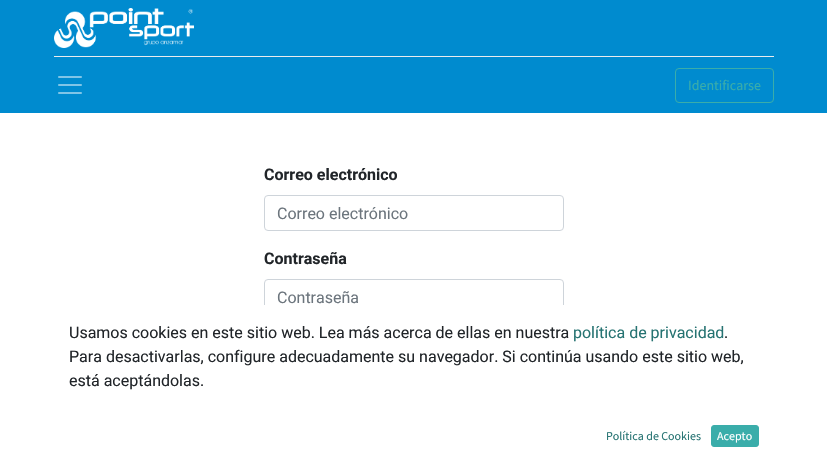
void draw(SkCanvas* c) {
SkPaint p;
p.setAntiAlias(true);
auto F=[&](const char* family, int weight, float size, bool italic = false){SkFontStyle style(weight, SkFontStyle::kNormal_Width,italic ? SkFontStyle::kItalic_Slant : SkFontStyle::kUpright_Slant);SkFont result(fontMgr->matchFamilyStyle(family, style), size);result.setSubpixel(true);return result;};
auto T=[&](const char* s, float x, float y, const SkFont& font){c->drawString(s, x, y, font, p);};
auto R=[&](float x, float y, float w, float h){c->drawRect(SkRect::MakeXYWH(x, y, w, h), p);};
auto I=[&](const char* path, float x, float y, float w, float h){auto image = SkImages::DeferredFromEncodedData(SkData::MakeFromFileName(path));c->drawImageRect(image, SkRect::MakeXYWH(x, y, w, h), SkSamplingOptions());};
c->clear(0xffffffff);
p.setColor(0xff008bcf);
R(0,0,827,113);
I("1.png",54,8,140,40);
p.setColor(0xffe9ecef);
R(54,56,720,1);
I("2.png",58,76,24,18);
p.setStroke(true);
p.setStrokeWidth(1);
p.setColor(0xff3aadaa);
c->drawRoundRect(SkRect::MakeXYWH(675.5,68.5,98,34),3.5,3.5,p);
auto f1 = F("Source Sans Pro",400,14);
p.setStroke(false);
T("Identificarse",688,90,f1);
auto f2 = F("Roboto",700,16);
p.setColor(0xff212529);
T("Correo electrónico",264,180,f2);
p.setStroke(true);
p.setColor(0xffced4da);
c->drawRoundRect(SkRect::MakeXYWH(264.5,195.5,299,35),3.5,3.5,p);
auto f3 = F("Roboto",400,16);
p.setStroke(false);
p.setColor(0xff6c757d);
T("Correo electrónico",277,219,f3);
p.setColor(0xff212529);
T("Contraseña",264,264,f2);
p.setStroke(true);
p.setColor(0xffced4da);
c->drawRoundRect(SkRect::MakeXYWH(264.5,279.5,299,35),3.5,3.5,p);
p.setStroke(false);
p.setColor(0xff6c757d);
T("Contraseña",277,303,f3);
p.setColor(0xffffffff);
R(264,305,300,10);
p.setColor(0xff212529);
T("Usamos cookies en este sitio web. Lea más acerca de ellas en nuestra",69,338,f3);
p.setColor(0xff267372);
T("política de privacidad",573,338,f3);
p.setColor(0xff212529);
T(".",724,338,f3);
T("Para desactivarlas, configure adecuadamente su navegador. Si continúa usando este sitio web,",69,362,f3);
T("está aceptándolas.",69,386,f3);
auto f4 = F("Source Sans Pro",400,12);
p.setColor(0xff267372);
T("Política de Cookies",606,440,f4);
p.setColor(0xff3aadaa);
c->drawRoundRect(SkRect::MakeXYWH(711.5,425.5,47,21),2.5,2.5,p);
p.setStroke(true);
c->drawRoundRect(SkRect::MakeXYWH(711.5,425.5,47,21),2.5,2.5,p);
p.setStroke(false);
p.setColor(0xffffffff);
T("Acepto",717,440,f4);
}
